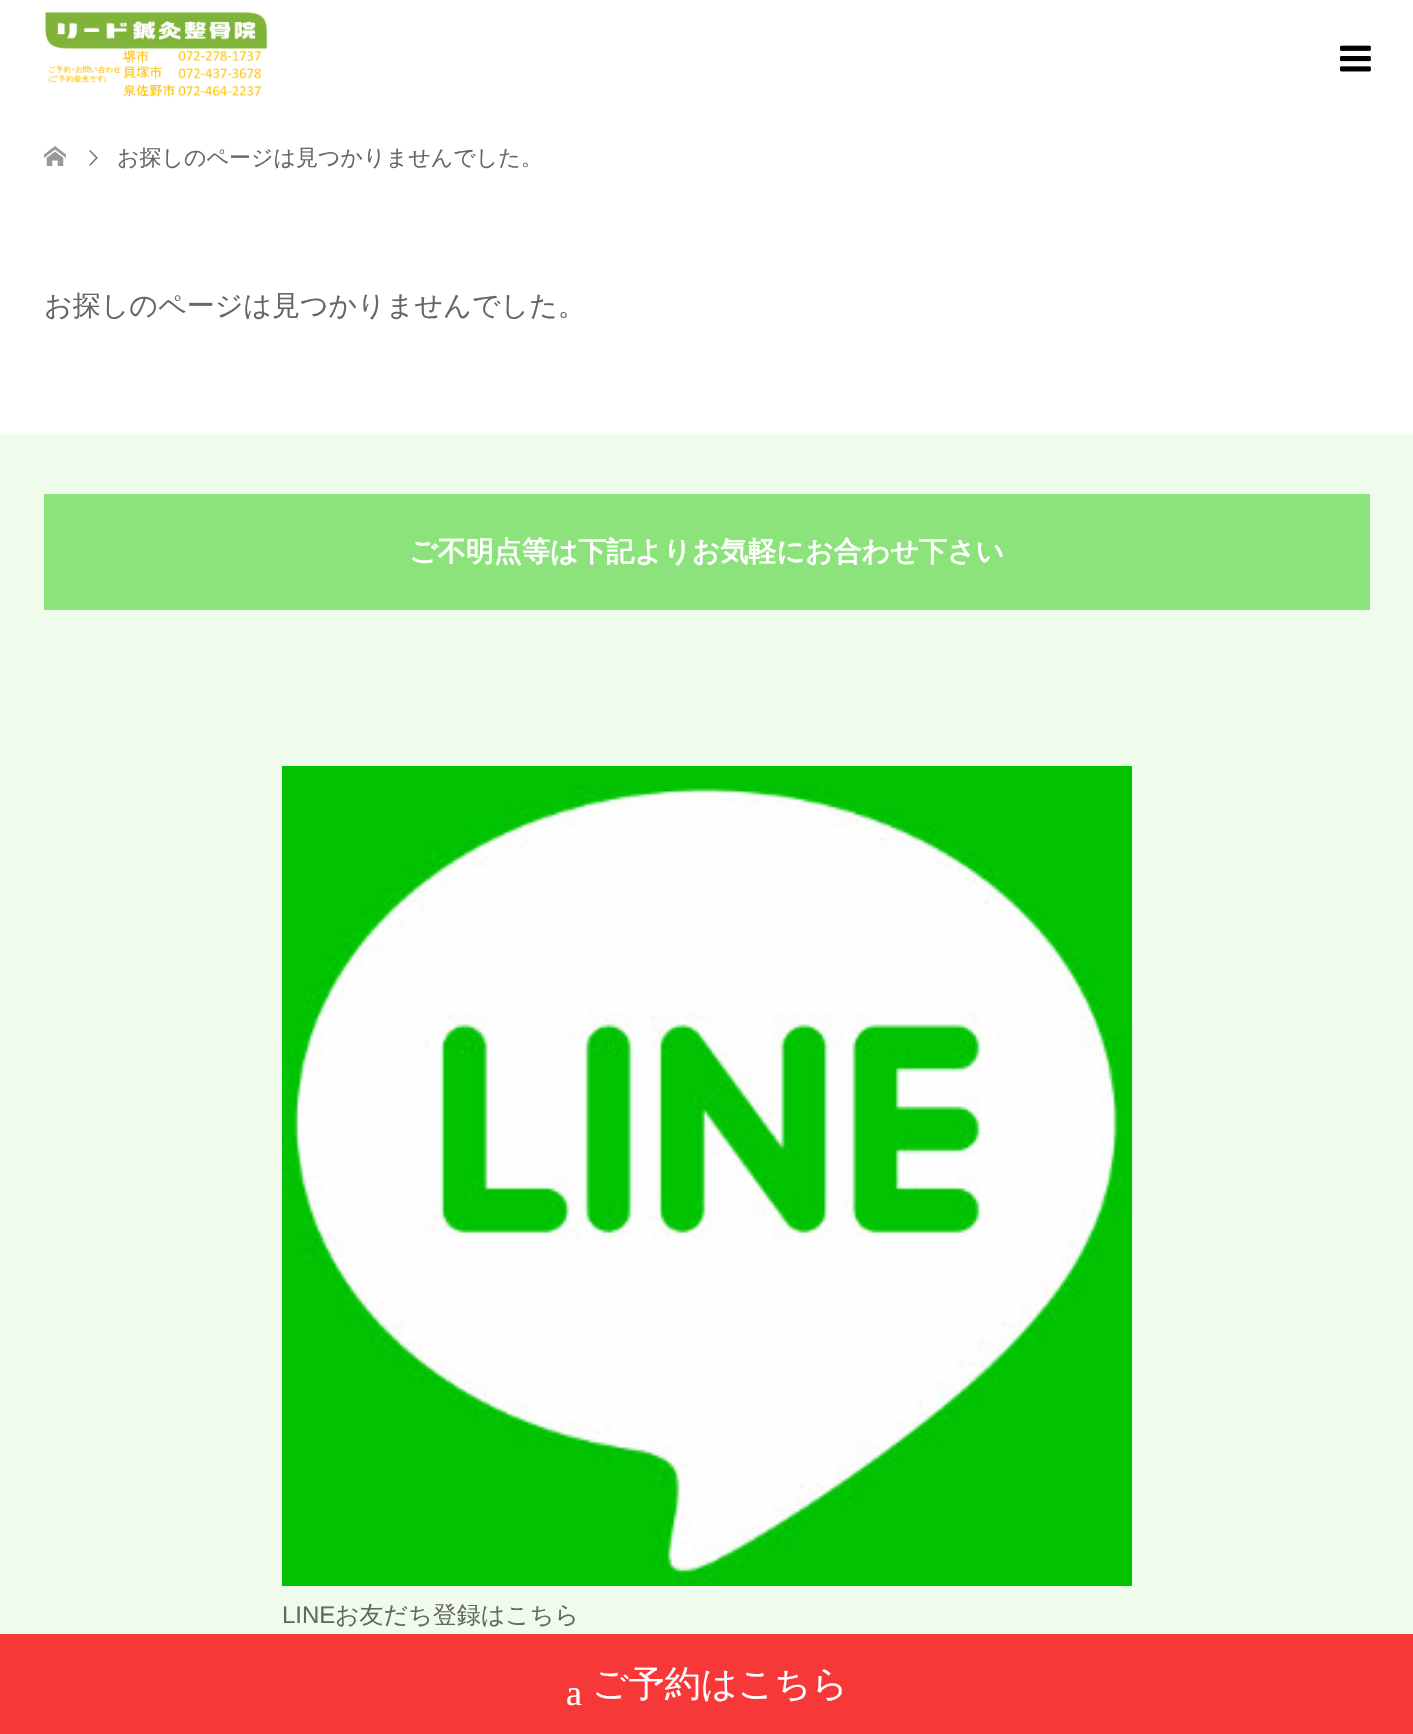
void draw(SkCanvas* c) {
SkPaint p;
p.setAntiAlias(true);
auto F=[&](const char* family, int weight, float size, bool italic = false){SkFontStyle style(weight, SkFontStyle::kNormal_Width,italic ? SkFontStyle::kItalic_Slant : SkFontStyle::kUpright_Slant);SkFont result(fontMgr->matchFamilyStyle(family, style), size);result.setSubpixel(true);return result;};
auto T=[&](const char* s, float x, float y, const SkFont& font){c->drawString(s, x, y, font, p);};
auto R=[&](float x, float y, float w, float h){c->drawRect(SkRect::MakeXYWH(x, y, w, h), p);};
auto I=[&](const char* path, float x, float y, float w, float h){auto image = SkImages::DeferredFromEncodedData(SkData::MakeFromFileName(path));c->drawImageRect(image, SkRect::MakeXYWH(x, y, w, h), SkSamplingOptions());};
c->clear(0xffffffff);
I("1.png",45,11,223,86);
I("2.png",1340,45,31,27);
I("3.png",44,146,22,20);
I("4.png",89,150,9,16);
auto f1 = F("WenQuanYi Zen Hei",500,22);
p.setColor(0xff666666);
T("お探しのページは見つかりませんでした。",117,165,f1);
auto f2 = F("WenQuanYi Zen Hei",500,28);
T("お探しのページは見つかりませんでした。",44,315,f2);
p.setColor(0xffeffcec);
R(0,434,1413,1200);
p.setColor(0xff8ce37b);
R(44,494,1326,116);
auto f3 = F("WenQuanYi Zen Hei",700,28);
p.setColor(0xffffffff);
T("ご不明点等は下記よりお気軽にお合わせ下さい",409,561,f3);
I("5.png",282,766,850,820);
auto f4 = F("Liberation Sans",400,24);
p.setColor(0xff666666);
T("LINE",282,1623,f4);
auto f5 = F("WenQuanYi Zen Hei",500,24);
T("お友だち登録はこちら",335,1623,f5);
p.setColor(0xfff73838);
R(0,1634,1413,100);
auto f6 = F("Liberation Serif",400,36);
p.setColor(0xffffffff);
T("a",566,1705,f6);
auto f7 = F("WenQuanYi Zen Hei",500,36);
T("ご予約はこちら",592,1696,f7);
}
